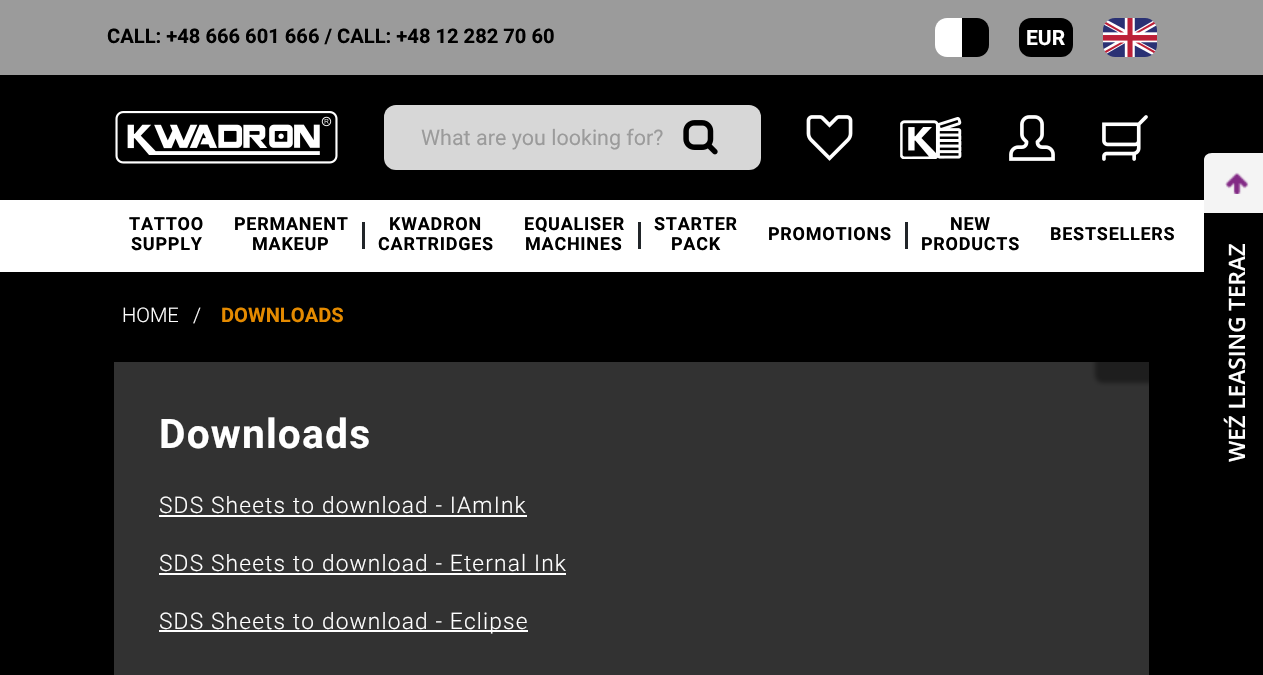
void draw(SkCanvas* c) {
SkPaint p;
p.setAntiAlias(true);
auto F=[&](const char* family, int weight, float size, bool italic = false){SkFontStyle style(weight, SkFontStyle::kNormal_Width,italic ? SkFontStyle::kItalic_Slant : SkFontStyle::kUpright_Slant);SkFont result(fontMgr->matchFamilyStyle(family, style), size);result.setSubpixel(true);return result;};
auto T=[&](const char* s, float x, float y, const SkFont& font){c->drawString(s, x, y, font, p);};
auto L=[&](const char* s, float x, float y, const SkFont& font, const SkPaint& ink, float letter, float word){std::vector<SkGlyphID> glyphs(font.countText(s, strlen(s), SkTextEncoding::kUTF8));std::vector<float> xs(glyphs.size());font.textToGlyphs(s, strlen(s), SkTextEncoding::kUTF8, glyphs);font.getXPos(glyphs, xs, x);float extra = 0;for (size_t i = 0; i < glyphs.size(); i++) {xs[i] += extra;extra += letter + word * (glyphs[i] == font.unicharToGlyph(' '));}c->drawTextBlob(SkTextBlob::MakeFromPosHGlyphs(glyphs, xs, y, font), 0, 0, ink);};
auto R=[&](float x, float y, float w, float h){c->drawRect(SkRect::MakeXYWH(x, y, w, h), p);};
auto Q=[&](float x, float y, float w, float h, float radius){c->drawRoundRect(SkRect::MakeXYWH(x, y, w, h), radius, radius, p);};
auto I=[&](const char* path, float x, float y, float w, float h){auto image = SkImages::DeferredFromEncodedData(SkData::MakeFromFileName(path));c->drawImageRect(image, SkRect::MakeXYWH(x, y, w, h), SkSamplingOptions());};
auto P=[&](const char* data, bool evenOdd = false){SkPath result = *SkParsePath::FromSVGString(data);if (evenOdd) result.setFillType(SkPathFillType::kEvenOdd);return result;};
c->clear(0xff000000);
p.setColor(0xff9b9b9b);
R(0,0,1263,75);
auto f1 = F("Roboto",700,20.15);
p.setColor(0xff000000);
T("CALL: +48 666 601 666 / CALL: +48 12 282 70 60",107,43,f1);
p.setColor(0xffffffff);
c->drawPath(P("M947 18h15v39h-15c-6.5 0-12-5.5-12-12v-15c0-6.5 5.5-12 12-12z"),p);
p.setColor(0xff000000);
c->drawPath(P("M962 18h15c6.5 0 12 5.5 12 12v15c0 6.5-5.5 12-12 12h-15z"),p);
Q(1019,18,54,39,12);
auto f2 = F("Roboto",700,21);
p.setColor(0xffffffff);
T("EUR",1026,45,f2);
I("1.png",1103,18,54,39);
I("2.png",115,111,223,53);
p.setColor(0xffd7d7d7);
Q(384,105,377,65,12);
auto f3 = F("Roboto",400,21.5);
p.setColor(0xff9b9b9b);
T("What are you looking for?",421,145,f3);
I("3.png",683,120,35,35);
I("4.png",806,115,47,46);
I("5.png",900,117,62,42);
I("6.png",1009,115,46,46);
I("7.png",1102,115,46,46);
p.setColor(0xffffffff);
R(0,200,1204,72);
auto f4 = F("Roboto",700,18);
p.setColor(0xff000000);
L("TATTOO",129,230,f4,p,.75,0);
L("SUPPLY",131,250,f4,p,.75,0);
L("PERMANENT",234,230,f4,p,.75,0);
L("MAKEUP",252,250,f4,p,.75,0);
p.setColor(0xff212529);
R(362,222,3,27);
p.setColor(0xff000000);
L("KWADRON",389,230,f4,p,.75,0);
L("CARTRIDGES",378,250,f4,p,.75,0);
L("EQUALISER",524,230,f4,p,.75,0);
L("MACHINES",525,250,f4,p,.75,0);
p.setColor(0xff212529);
R(638,222,3,27);
p.setColor(0xff000000);
L("STARTER",654,230,f4,p,.75,0);
L("PACK",671,250,f4,p,.75,0);
L("PROMOTIONS",768,240,f4,p,.75,0);
p.setColor(0xff212529);
R(905,222,3,27);
p.setColor(0xff000000);
L("NEW",950,230,f4,p,.75,0);
L("PRODUCTS",921,250,f4,p,.75,0);
L("BESTSELLERS",1050,240,f4,p,.75,0);
auto f5 = F("Roboto",300,20.15);
p.setColor(0xffffffff);
T("HOME",122,322,f5);
T("/",193,322,f5);
p.setColor(0xffe48a00);
T("DOWNLOADS",221,322,f1);
p.setColor(0xff323232);
R(114,362,1035,313);
auto f6 = F("Roboto",700,40.75);
p.setColor(0xffffffff);
L("Downloads",159,448,f6,p,1.15,0);
auto f7 = F("Roboto",300,22.75);
L("SDS Sheets to download - IAmInk",159,513,f7,p,1.15,0);
R(159,515,368,2);
L("SDS Sheets to download - Eternal Ink",159,571,f7,p,1.15,0);
R(159,573,407,2);
R(159,630,369,2);
L("SDS Sheets to download - Eclipse",159,629,f7,p,1.15,0);
p.setColor(0x66000000);
p.setMaskFilter(SkMaskFilter::MakeBlur(kNormal_SkBlurStyle, 2));
c->drawRoundRect(SkRect::MakeXYWH(1095,320,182,63),8,8,p);
p.setMaskFilter(nullptr);
p.setColor(0xfff4f4f4);
c->drawPath(P("M1204 213v-53c0-4 3-7 8-7h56v60z"),p);
I("8.png",1225,172,24,22);
auto f8 = F("Open Sans",600,22.5);
p.setColor(0xffffffff);
c->save();
c->rotate(-90,1245,462);
T("WEŹ LEASING TERAZ",1245,462,f8);
c->restore();
}
